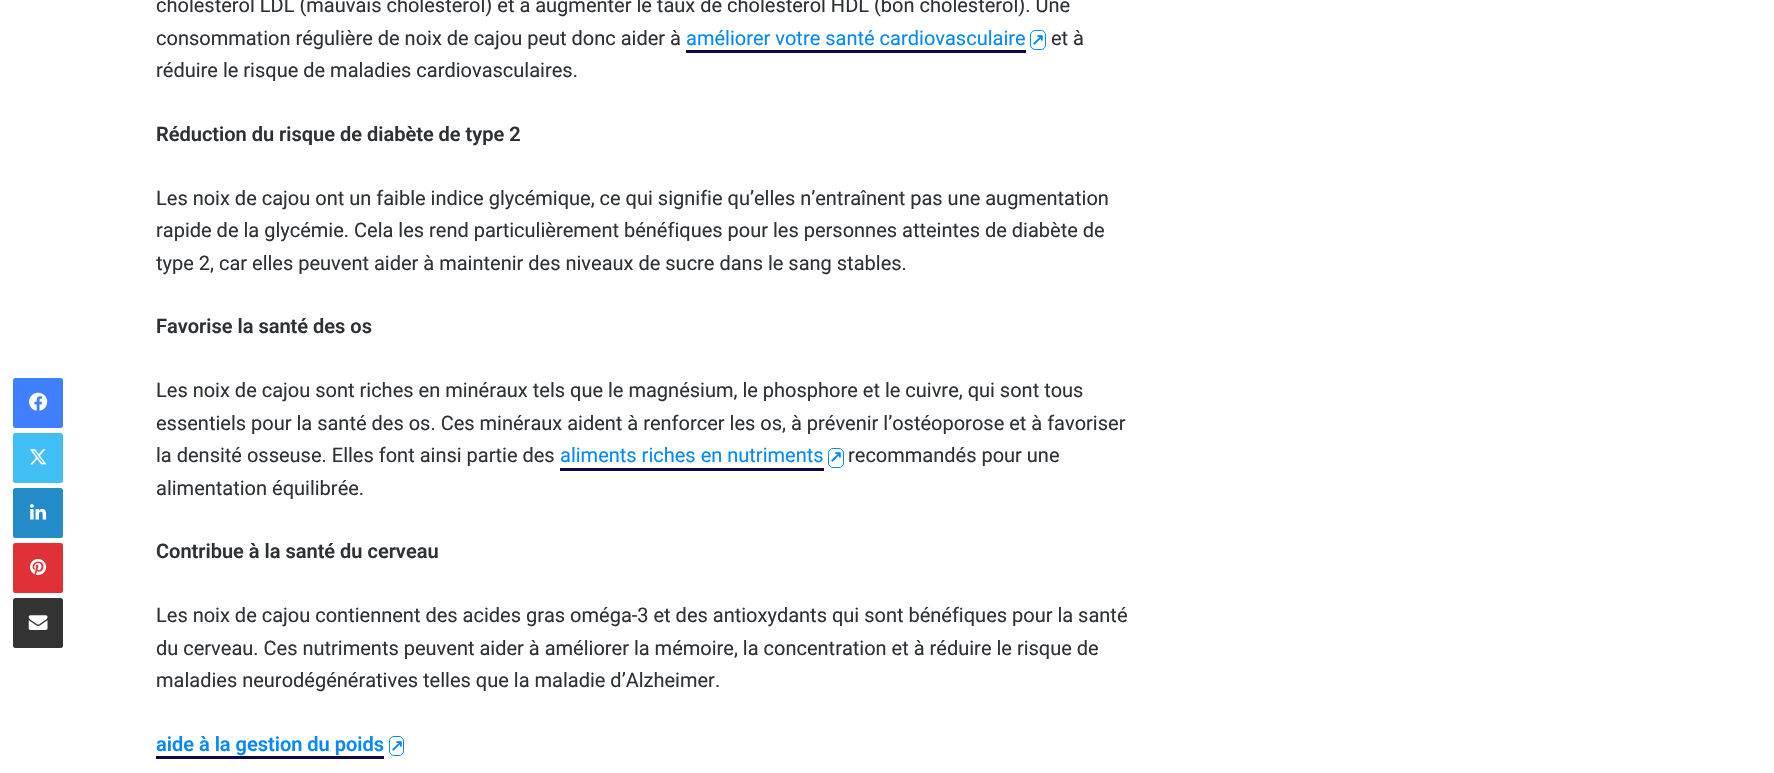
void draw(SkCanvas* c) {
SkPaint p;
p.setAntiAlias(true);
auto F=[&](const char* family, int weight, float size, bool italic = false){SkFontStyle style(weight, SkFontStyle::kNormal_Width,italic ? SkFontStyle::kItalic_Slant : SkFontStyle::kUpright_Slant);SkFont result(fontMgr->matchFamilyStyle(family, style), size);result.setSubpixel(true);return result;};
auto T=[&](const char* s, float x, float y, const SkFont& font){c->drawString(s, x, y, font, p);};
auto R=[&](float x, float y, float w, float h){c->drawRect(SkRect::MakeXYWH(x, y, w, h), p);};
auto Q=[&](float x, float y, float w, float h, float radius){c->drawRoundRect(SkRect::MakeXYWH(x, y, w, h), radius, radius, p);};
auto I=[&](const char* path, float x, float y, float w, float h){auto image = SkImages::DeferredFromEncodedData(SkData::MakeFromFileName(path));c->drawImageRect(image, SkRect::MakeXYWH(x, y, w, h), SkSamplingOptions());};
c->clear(0xffffffff);
p.setColor(0xff4080ff);
Q(13,378,50,50,2.5);
I("1.png",29,392,19,19);
p.setColor(0xff40bff5);
Q(13,433,50,50,2.5);
I("2.png",29,449,18,16);
p.setColor(0xff238cc8);
Q(13,488,50,50,2.5);
I("3.png",30,504,17,16);
p.setColor(0xffe13138);
Q(13,543,50,50,2.5);
I("4.png",30,558,17,17);
p.setColor(0xff333333);
Q(13,598,50,50,2.5);
I("5.png",28,615,20,15);
auto f1 = F("Roboto",400,20);
p.setColor(0xff2e3136);
T("cholestérol LDL (mauvais cholestérol) et à augmenter le taux de cholestérol HDL (bon cholestérol). Une",156,12,f1);
T("consommation régulière de noix de cajou peut donc aider à",156,45,f1);
p.setColor(0xff0389ff);
T("améliorer votre santé cardiovasculaire",686,45,f1);
p.setColor(0xff0d0947);
R(686,50,340,3);
p.setStroke(true);
p.setStrokeWidth(1);
p.setColor(0xff0389ff);
c->drawRoundRect(SkRect::MakeXYWH(1030.5,30.5,15,19),4.5,4.5,p);
auto f2 = F("DejaVu Sans",700,16);
p.setStroke(false);
T("↗",1031,45,f2);
p.setColor(0xff2e3136);
T("et à",1051,45,f1);
T("réduire le risque de maladies cardiovasculaires.",156,77,f1);
auto f3 = F("Roboto",600,20);
T("Réduction du risque de diabète de type 2",156,141,f3);
T("Les noix de cajou ont un faible indice glycémique, ce qui signifie qu’elles n’entraînent pas une augmentation",156,205,f1);
T("rapide de la glycémie. Cela les rend particulièrement bénéfiques pour les personnes atteintes de diabète de",156,237,f1);
T("type 2, car elles peuvent aider à maintenir des niveaux de sucre dans le sang stables.",156,270,f1);
T("Favorise la santé des os",156,333,f3);
T("Les noix de cajou sont riches en minéraux tels que le magnésium, le phosphore et le cuivre, qui sont tous",156,397,f1);
T("essentiels pour la santé des os. Ces minéraux aident à renforcer les os, à prévenir l’ostéoporose et à favoriser",156,430,f1);
T("la densité osseuse. Elles font ainsi partie des",156,462,f1);
p.setColor(0xff0389ff);
T("aliments riches en nutriments",560,462,f1);
p.setColor(0xff0d0947);
R(560,468,264,3);
p.setStroke(true);
p.setColor(0xff0389ff);
c->drawRoundRect(SkRect::MakeXYWH(828.5,448.5,15,19),4.5,4.5,p);
p.setStroke(false);
T("↗",829,462,f2);
p.setColor(0xff2e3136);
T("recommandés pour une",848,462,f1);
T("alimentation équilibrée.",156,495,f1);
T("Contribue à la santé du cerveau",156,558,f3);
T("Les noix de cajou contiennent des acides gras oméga-3 et des antioxydants qui sont bénéfiques pour la santé",156,622,f1);
T("du cerveau. Ces nutriments peuvent aider à améliorer la mémoire, la concentration et à réduire le risque de",156,655,f1);
T("maladies neurodégénératives telles que la maladie d’Alzheimer.",156,687,f1);
p.setColor(0xff0389ff);
T("aide à la gestion du poids",156,751,f3);
p.setColor(0xff0d0947);
R(156,756,228,3);
p.setStroke(true);
p.setColor(0xff0389ff);
c->drawRoundRect(SkRect::MakeXYWH(389.5,736.5,14,19),4.5,4.5,p);
p.setStroke(false);
T("↗",390,751,f2);
}
